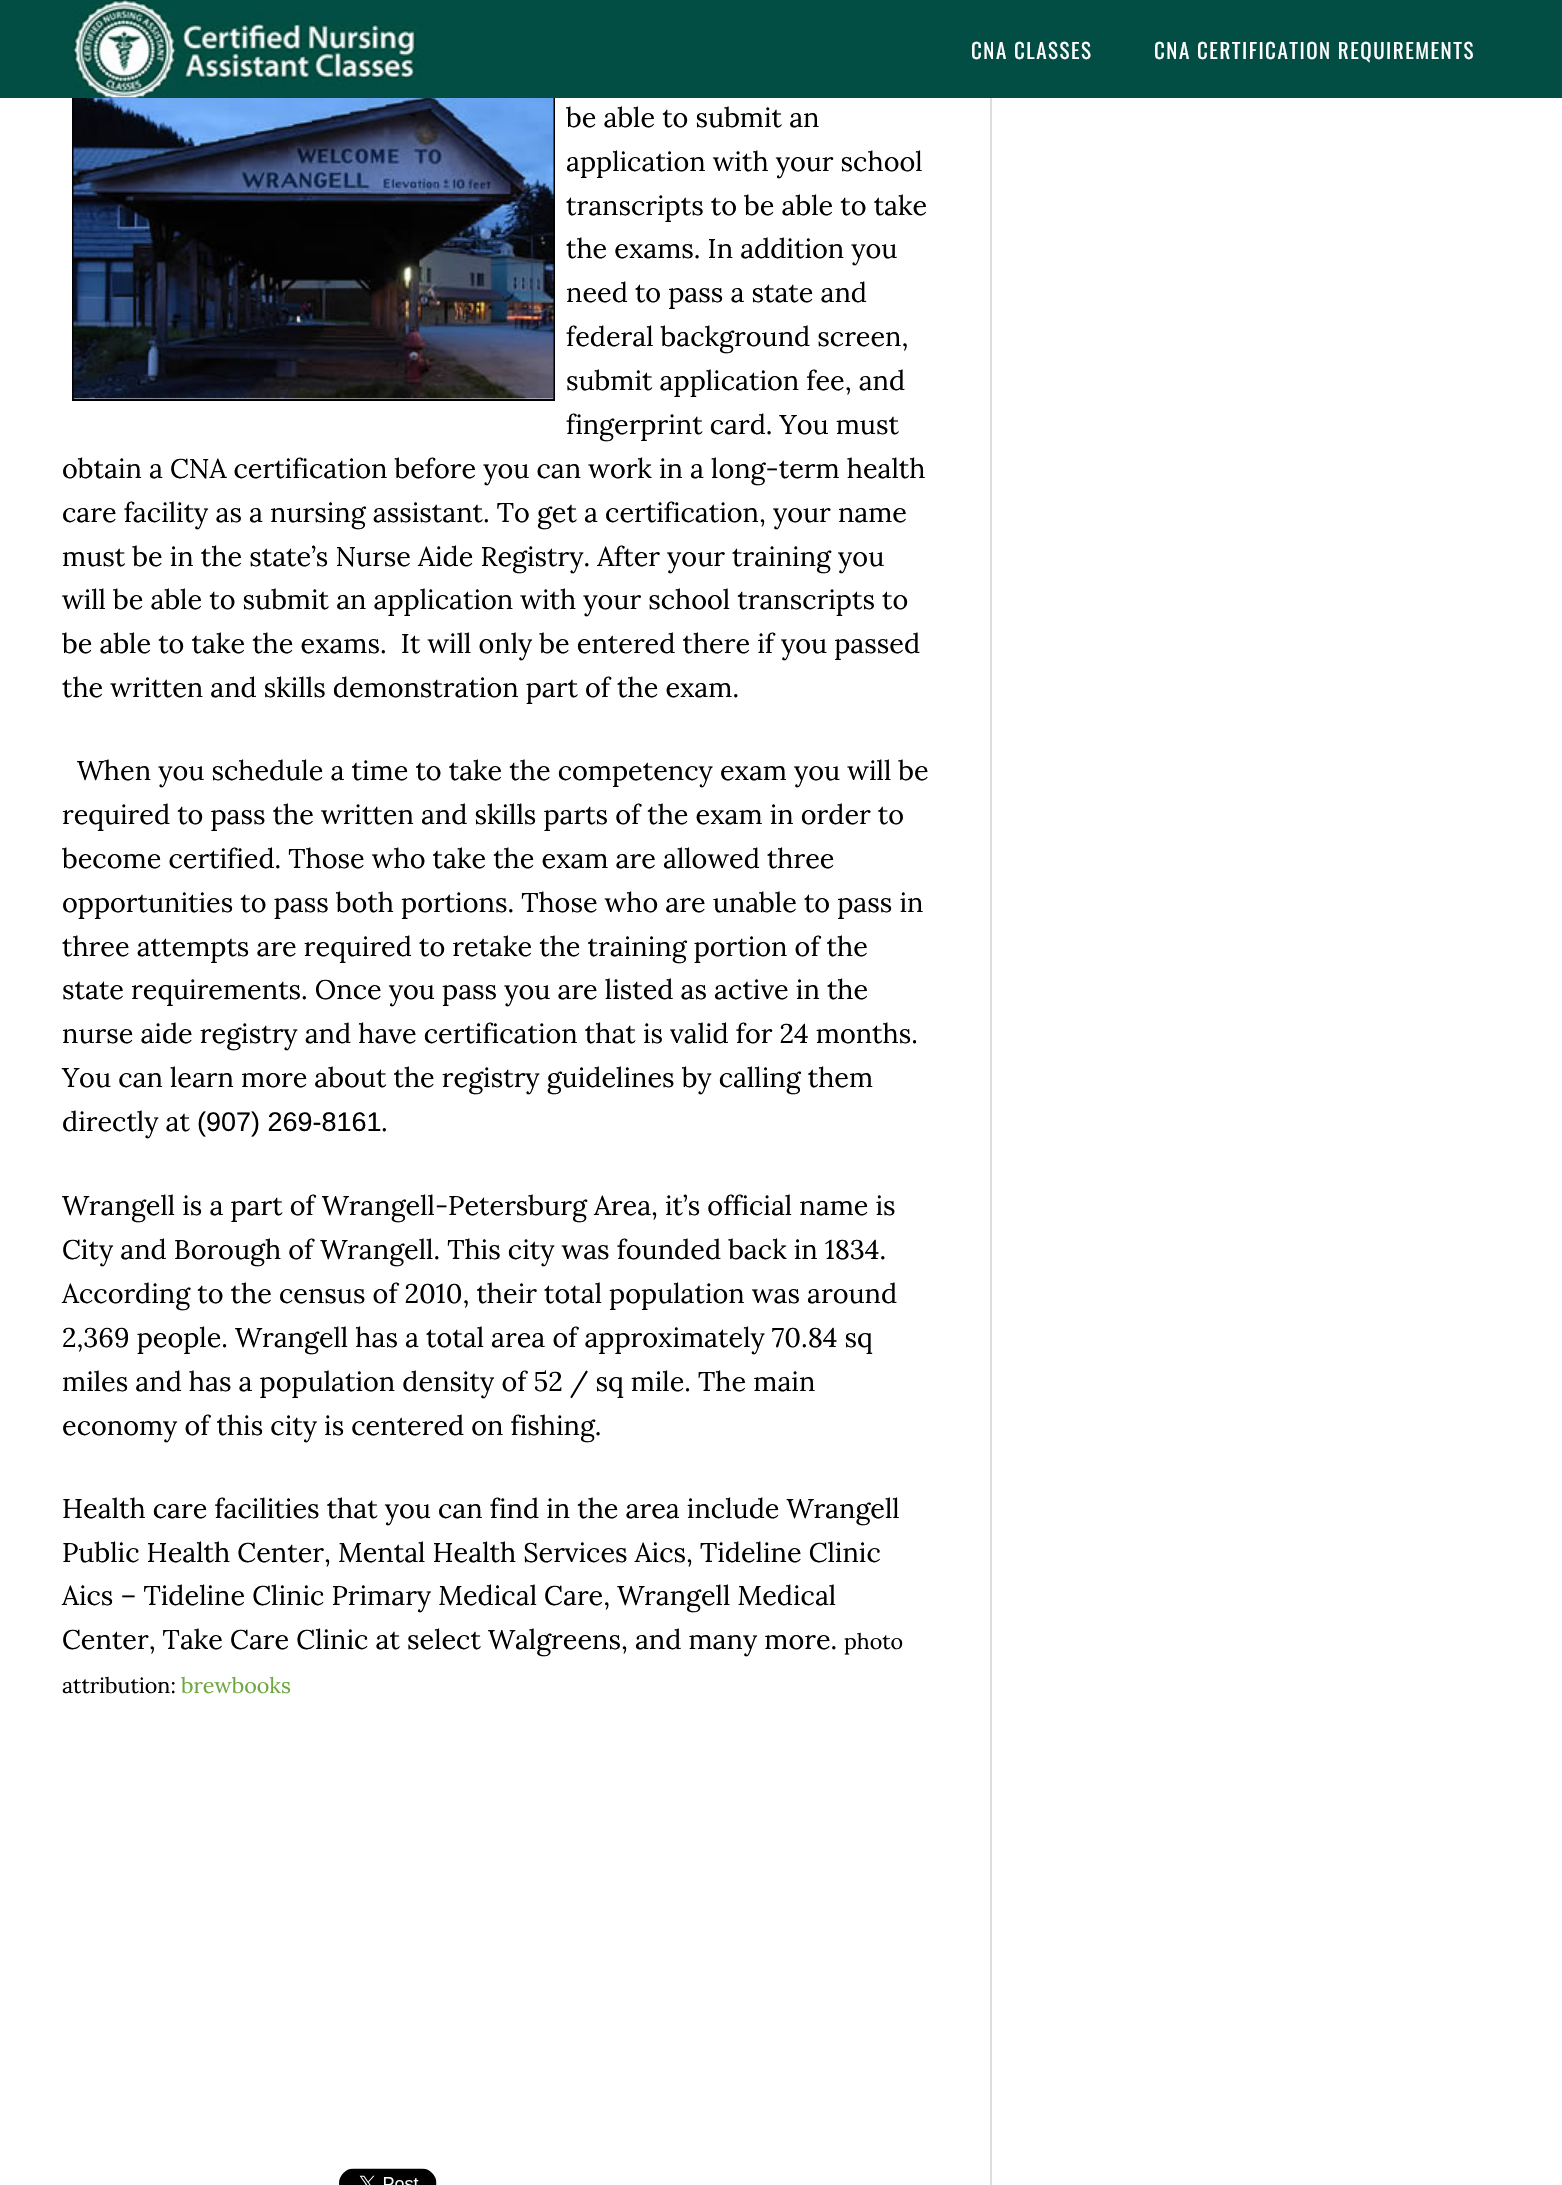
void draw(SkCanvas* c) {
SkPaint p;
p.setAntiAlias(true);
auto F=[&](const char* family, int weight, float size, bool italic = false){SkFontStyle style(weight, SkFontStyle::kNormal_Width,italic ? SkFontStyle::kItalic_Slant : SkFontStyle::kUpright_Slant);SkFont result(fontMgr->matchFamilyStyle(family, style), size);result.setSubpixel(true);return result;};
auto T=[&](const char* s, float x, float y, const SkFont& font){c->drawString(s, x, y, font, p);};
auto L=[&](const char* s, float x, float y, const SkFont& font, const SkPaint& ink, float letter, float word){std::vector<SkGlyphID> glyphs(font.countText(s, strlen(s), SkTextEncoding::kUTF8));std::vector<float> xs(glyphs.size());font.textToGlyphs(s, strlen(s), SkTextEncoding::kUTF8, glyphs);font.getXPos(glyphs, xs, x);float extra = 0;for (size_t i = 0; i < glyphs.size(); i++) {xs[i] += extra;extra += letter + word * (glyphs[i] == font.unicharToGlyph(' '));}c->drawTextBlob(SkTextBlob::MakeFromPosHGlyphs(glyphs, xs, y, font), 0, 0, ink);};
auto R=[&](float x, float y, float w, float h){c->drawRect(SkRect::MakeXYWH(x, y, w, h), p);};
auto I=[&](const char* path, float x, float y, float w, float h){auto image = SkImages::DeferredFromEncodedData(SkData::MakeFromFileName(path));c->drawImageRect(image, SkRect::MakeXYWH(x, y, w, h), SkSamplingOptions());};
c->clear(0xffffffff);
p.setStroke(true);
p.setStrokeWidth(2);
p.setColor(0xff000000);
c->drawRect(SkRect::MakeXYWH(73,63,481,337),p);
p.setStroke(false);
p.setColor(0xff024e44);
R(0,0,1562,98);
I("1.png",72,0,349,98);
auto f1 = F("Oswald",400,21);
p.setColor(0xffffffff);
L("CNA CLASSES",971,59,f1,p,1.5,0);
L("CNA CERTIFICATION REQUIREMENTS",1154,59,f1,p,1.5,0);
p.setColor(0xffdddddd);
R(990,98,2,2087);
I("2.png",73,98,481,301);
auto f2 = F("Lora",400,27);
p.setColor(0xff000000);
T("be able to submit an",566,127,f2);
T("application with your school",566,171,f2);
T("transcripts to be able to take",566,215,f2);
T("the exams. In addition you",566,258,f2);
T("need to pass a state and",566,302,f2);
T("federal background screen,",566,346,f2);
T("submit application fee, and",566,390,f2);
T("fingerprint card. You must",566,434,f2);
T("obtain a CNA certification before you can work in a long-term health",62,478,f2);
T("care facility as a nursing assistant. To get a certification, your name",62,522,f2);
T("must be in the state’s Nurse Aide Registry. After your training you",62,566,f2);
T("will be able to submit an application with your school transcripts to",62,609,f2);
T("be able to take the exams.  It will only be entered there if you passed",62,653,f2);
T("the written and skills demonstration part of the exam.",62,697,f2);
T("When you schedule a time to take the competency exam you will be",77,780,f2);
T("required to pass the written and skills parts of the exam in order to",62,824,f2);
T("become certified. Those who take the exam are allowed three",62,868,f2);
T("opportunities to pass both portions. Those who are unable to pass in",62,912,f2);
T("three attempts are required to retake the training portion of the",62,956,f2);
T("state requirements. Once you pass you are listed as active in the",62,999,f2);
T("nurse aide registry and have certification that is valid for 24 months.",62,1043,f2);
T("You can learn more about the registry guidelines by calling them",62,1087,f2);
T("directly at",62,1131,f2);
auto f3 = F("Liberation Sans",400,27);
T("(907) 269-8161",197,1131,f3);
T(".",381,1131,f2);
T("Wrangell is a part of Wrangell-Petersburg Area, it’s official name is",62,1215,f2);
T("City and Borough of Wrangell. This city was founded back in 1834.",62,1259,f2);
T("According to the census of 2010, their total population was around",62,1303,f2);
T("2,369 people. Wrangell has a total area of approximately 70.84 sq",62,1347,f2);
T("miles and has a population density of 52 / sq mile. The main",62,1391,f2);
T("economy of this city is centered on fishing.",62,1435,f2);
T("Health care facilities that you can find in the area include Wrangell",62,1518,f2);
T("Public Health Center, Mental Health Services Aics, Tideline Clinic",62,1562,f2);
T("Aics – Tideline Clinic Primary Medical Care, Wrangell Medical",62,1605,f2);
T("Center, Take Care Clinic at select Walgreens, and many more.",62,1649,f2);
auto f4 = F("Lora",400,21.5);
T("photo",844,1649,f4);
T("attribution:",62,1693,f4);
p.setColor(0xff6ca741);
T("brewbooks",181,1693,f4);
I("3.png",339,2168,98,17);
}
